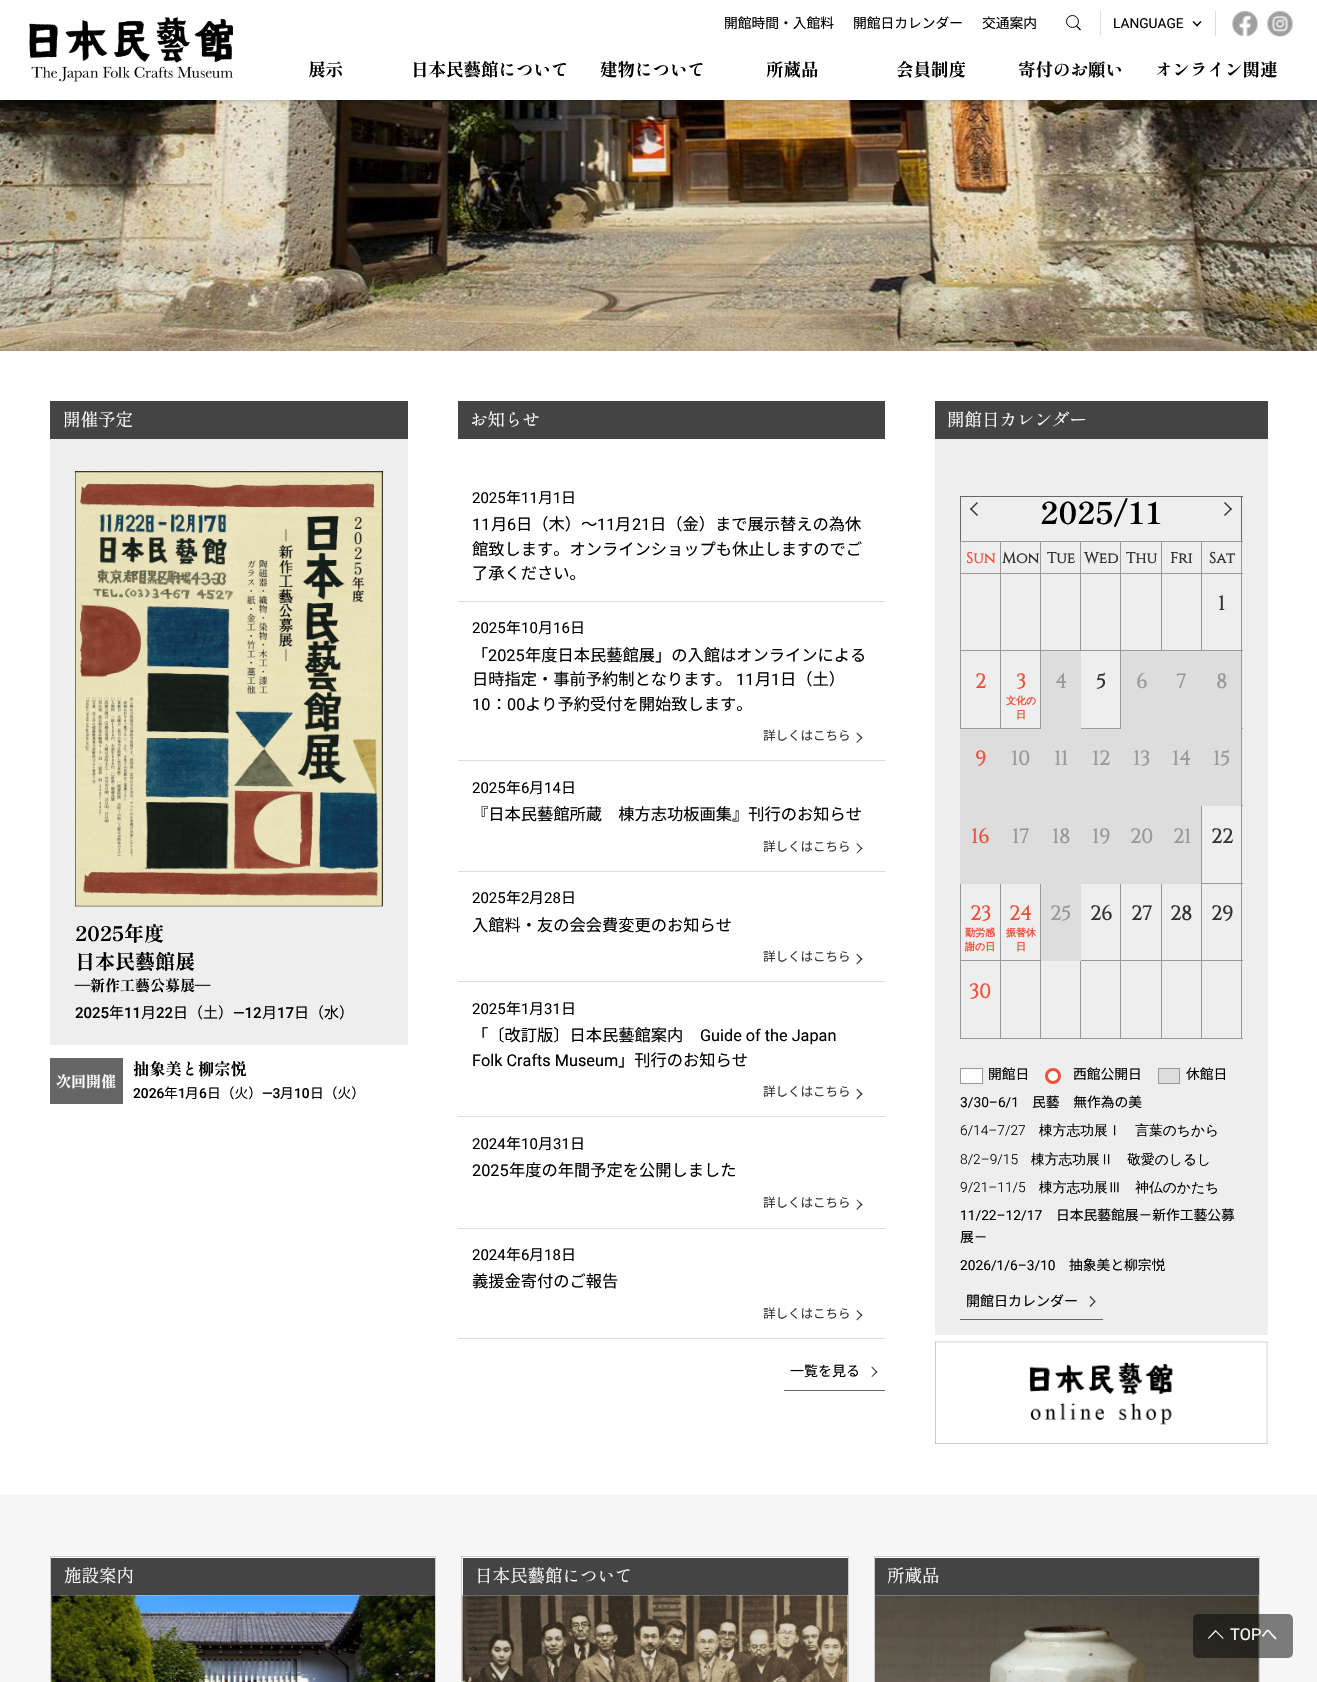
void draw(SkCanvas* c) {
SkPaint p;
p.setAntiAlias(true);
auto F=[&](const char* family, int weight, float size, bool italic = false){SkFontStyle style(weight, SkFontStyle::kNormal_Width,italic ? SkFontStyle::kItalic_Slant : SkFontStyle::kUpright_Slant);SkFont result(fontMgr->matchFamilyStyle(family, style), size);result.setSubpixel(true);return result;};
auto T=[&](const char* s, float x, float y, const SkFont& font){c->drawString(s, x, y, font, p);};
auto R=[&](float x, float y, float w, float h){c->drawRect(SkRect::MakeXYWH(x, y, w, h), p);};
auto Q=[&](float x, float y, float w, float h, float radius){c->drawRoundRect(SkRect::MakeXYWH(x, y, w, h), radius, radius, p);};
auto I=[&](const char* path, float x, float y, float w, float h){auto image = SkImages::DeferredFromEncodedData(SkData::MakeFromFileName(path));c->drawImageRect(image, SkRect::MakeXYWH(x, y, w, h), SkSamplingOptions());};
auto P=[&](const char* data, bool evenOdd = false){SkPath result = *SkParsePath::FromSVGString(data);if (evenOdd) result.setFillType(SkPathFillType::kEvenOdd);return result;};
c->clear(0xffffffff);
I("4.png",0,100,1317,251);
p.setColor(0x33000000);
p.setMaskFilter(SkMaskFilter::MakeBlur(kNormal_SkBlurStyle, 2));
c->drawRect(SkRect::MakeXYWH(0,1,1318,100),p);
p.setMaskFilter(nullptr);
p.setColor(0xffffffff);
R(0,0,1317,100);
I("1.png",29,17,204,65);
auto f1 = F("Noto Sans JP",400,13.75);
p.setColor(0xff000000);
T("開館時間・入館料",724,28,f1);
T("開館日カレンダー",853,28,f1);
T("交通案内",982,28,f1);
p.setStroke(true);
p.setStrokeWidth(1);
c->drawCircle(1072.5,21.5,6,p);
p.setStroke(false);
c->drawPath(P("M1076.5 25l4.5 4.5l-1 1l-4-4.5z"),p);
p.setColor(0xffdddddd);
R(1215,11,1,25);
R(1100,11,1,25);
auto f2 = F("Roboto",400,13.75);
p.setColor(0xff000000);
T("LANGUAGE",1113,28,f2);
c->drawPath(P("M1201.5 22l-4.5 4.5l-1-1l4.5-4.5z"),p);
c->drawPath(P("M1198 25.5l-1 1l-4.5-4.5l1-1z"),p);
I("2.png",1232,11,26,26);
I("3.png",1267,11,26,26);
auto f3 = F("Shippori Mincho",700,17.5);
T("展示",308,76,f3);
T("日本民藝館について",411,76,f3);
T("建物について",600,76,f3);
T("所蔵品",766,76,f3);
T("会員制度",896,76,f3);
T("寄付のお願い",1018,76,f3);
T("オンライン関連",1155,76,f3);
p.setColor(0xff444444);
R(50,401,358,38);
auto f4 = F("Shippori Mincho",400,17.5);
p.setColor(0xffffffff);
T("開催予定",63,426,f4);
p.setColor(0xffeeeeee);
R(50,439,358,606);
p.setColor(0xff000000);
R(75,471,308,435);
I("5.png",75,471,308,436);
auto f5 = F("Shippori Mincho",700,20);
T("2025年度",75,941,f5);
T("日本民藝館展",75,969,f5);
auto f6 = F("Shippori Mincho",700,15);
T("—新作工藝公募展—",75,991,f6);
auto f7 = F("Roboto",500,15);
T("2025",75,1018,f7);
auto f8 = F("Noto Sans JP",400,15);
T("年",109,1018,f8);
T("11",124,1018,f7);
T("月",141,1018,f8);
T("22",156,1018,f7);
T("日（土）",173,1018,f8);
T("―12",233,1018,f7);
T("月",262,1018,f8);
T("17",277,1018,f7);
T("日（水）",294,1018,f8);
p.setColor(0xff666666);
R(50,1058,73,46);
p.setColor(0xffffffff);
T("次回開催",56,1087,f6);
auto f9 = F("Shippori Mincho",700,16.25);
p.setColor(0xff000000);
T("抽象美と柳宗悦",133,1075,f9);
auto f10 = F("Roboto",500,13.75);
T("2026",133,1098,f10);
T("年",164,1098,f1);
T("1",178,1098,f10);
T("月",185,1098,f1);
T("6",199,1098,f10);
T("日（火）",207,1098,f1);
T("―3",262,1098,f10);
T("月",280,1098,f1);
T("10",294,1098,f10);
T("日（火）",310,1098,f1);
p.setColor(0xff444444);
R(458,401,427,38);
p.setColor(0xffffffff);
T("お知らせ",470,426,f4);
p.setColor(0xffdddddd);
R(458,601,427,1);
auto f11 = F("Roboto",400,15);
p.setColor(0xff000000);
T("2025",472,503,f11);
T("年",506,503,f8);
T("11",521,503,f11);
T("月",538,503,f8);
T("1",553,503,f11);
T("日",561,503,f8);
auto f12 = F("Roboto",400,16.25);
T("11",472,530,f12);
auto f13 = F("Noto Sans JP",400,16.25);
T("月",491,530,f13);
T("6",507,530,f12);
T("日（木）～",516,530,f13);
T("11",597,530,f12);
T("月",615,530,f13);
T("21",632,530,f12);
T("日（金）まで展示替えの為休",650,530,f13);
T("館致します。オンラインショップも休止しますのでご",472,555,f13);
T("了承ください。",472,579,f13);
p.setColor(0xffdddddd);
R(458,760,427,1);
p.setColor(0xff000000);
T("2025",472,633,f11);
T("年",506,633,f8);
T("10",521,633,f11);
T("月",538,633,f8);
T("16",553,633,f11);
T("日",570,633,f8);
T("「",472,661,f13);
T("2025",488,661,f12);
T("年度日本民藝館展」の入館はオンラインによる",525,661,f13);
T("日時指定・事前予約制となります。",472,685,f13);
T("11",736,685,f12);
T("月",755,685,f13);
T("1",771,685,f12);
T("日（土）",780,685,f13);
T("10",472,710,f12);
T("：",491,710,f13);
T("00",507,710,f12);
T("より予約受付を開始致します。",525,710,f13);
auto f14 = F("Noto Sans JP",400,12.5);
p.setColor(0xff333333);
T("詳しくはこちら",763,740,f14);
c->drawPath(P("M857 732.5l5.5 5l-1 1l-5-5z"),p);
c->drawPath(P("M861.5 737l1 .5l-5.5 5.5l-.5-1z"),p);
p.setColor(0xffdddddd);
R(458,871,427,1);
p.setColor(0xff000000);
T("2025",472,793,f11);
T("年",506,793,f8);
T("6",521,793,f11);
T("月",529,793,f8);
T("14",544,793,f11);
T("日",561,793,f8);
T("『日本民藝館所蔵　棟方志功板画集』刊行のお知らせ",472,820,f13);
p.setColor(0xff333333);
T("詳しくはこちら",763,851,f14);
c->drawPath(P("M857 843l5.5 5.5l-1 .5l-5-5z"),p);
c->drawPath(P("M861.5 847.5l1 1l-5.5 5l-.5-.5z"),p);
p.setColor(0xffdddddd);
R(458,981,427,1);
p.setColor(0xff000000);
T("2025",472,903,f11);
T("年",506,903,f8);
T("2",521,903,f11);
T("月",529,903,f8);
T("28",544,903,f11);
T("日",561,903,f8);
T("入館料・友の会会費変更のお知らせ",472,931,f13);
p.setColor(0xff333333);
T("詳しくはこちら",763,961,f14);
c->drawPath(P("M857 953.5l5.5 5.5l-1 1l-5-5.5z"),p);
c->drawPath(P("M861.5 958l1 1l-5.5 5.5l-.5-1z"),p);
p.setColor(0xffdddddd);
R(458,1116,427,1);
p.setColor(0xff000000);
T("2025",472,1014,f11);
T("年",506,1014,f8);
T("1",521,1014,f11);
T("月",529,1014,f8);
T("31",544,1014,f11);
T("日",561,1014,f8);
T("「〔改訂版〕日本民藝館案内",472,1041,f13);
T("Guide of the Japan",700,1041,f12);
T("Folk Crafts Museum",472,1066,f12);
T("」刊行のお知らせ",618,1066,f13);
p.setColor(0xff333333);
T("詳しくはこちら",763,1096,f14);
c->drawPath(P("M857 1088.5l5.5 5.5l-1 1l-5-5.5z"),p);
c->drawPath(P("M861.5 1093l1 1l-5.5 5.5l-.5-1z"),p);
p.setColor(0xffdddddd);
R(458,1228,427,1);
p.setColor(0xff000000);
T("2024",472,1149,f11);
T("年",506,1149,f8);
T("10",521,1149,f11);
T("月",538,1149,f8);
T("31",553,1149,f11);
T("日",570,1149,f8);
T("2025",472,1176,f12);
T("年度の年間予定を公開しました",509,1176,f13);
p.setColor(0xff333333);
T("詳しくはこちら",763,1207,f14);
c->drawPath(P("M857 1199.5l5.5 5l-1 1l-5-5.5z"),p);
c->drawPath(P("M861.5 1203.5l1 1l-5.5 5.5l-.5-1z"),p);
p.setColor(0xffdddddd);
R(458,1338,427,1);
p.setColor(0xff000000);
T("2024",472,1260,f11);
T("年",506,1260,f8);
T("6",521,1260,f11);
T("月",529,1260,f8);
T("18",544,1260,f11);
T("日",561,1260,f8);
T("義援金寄付のご報告",472,1287,f13);
p.setColor(0xff333333);
T("詳しくはこちら",763,1318,f14);
c->drawPath(P("M857 1310l5.5 5l-1 1l-5-5z"),p);
c->drawPath(P("M861.5 1314.5l1 .5l-5.5 5.5l-.5-1z"),p);
p.setColor(0xff666666);
R(784,1390,101,1);
auto f15 = F("Noto Sans JP",400,14);
p.setColor(0xff000000);
T("一覧を見る",790,1376,f15);
p.setColor(0xff333333);
c->drawPath(P("M872 1366.5l5.5 5.5l-1 .5l-5-5z"),p);
c->drawPath(P("M876.5 1371l1 1l-5.5 5l-.5-.5z"),p);
p.setColor(0xff444444);
R(935,401,333,38);
p.setColor(0xffffffff);
T("開館日カレンダー",947,426,f4);
p.setColor(0xffeeeeee);
R(935,439,333,896);
p.setColor(0xff666666);
R(960,496,283,1);
R(1241,496,1,45);
R(960,496,1,45);
p.setColor(0xff333333);
c->drawPath(P("M977 516l-7-7l1-1l7 7z"),p);
c->drawPath(P("M971 510l-1-1l7-7l1 1z"),p);
auto f16 = F("Shippori Mincho",700,30);
p.setColor(0xff000000);
T("2025/11",1040,524,f16);
p.setColor(0xff333333);
c->drawPath(P("M1225 502l7 7l-1 1l-7-7z"),p);
c->drawPath(P("M1231 508l1 1l-7 7l-1-1z"),p);
p.setColor(0xff999999);
R(1201,541,42,1);
R(1201,573,42,1);
R(1120,650,123,1);
R(1201,573,1,78);
R(1161,573,42,1);
R(1201,541,1,33);
R(1161,541,42,1);
R(1161,573,1,78);
R(1120,573,43,1);
R(1161,541,1,33);
R(1120,541,43,1);
R(1080,728,41,1);
R(1120,650,1,79);
R(1040,650,81,1);
R(1120,573,1,78);
R(1080,573,41,1);
R(1120,541,1,33);
R(1080,541,41,1);
R(1080,573,1,78);
R(1040,573,41,1);
R(1080,541,1,33);
R(1040,541,41,1);
R(960,728,81,1);
R(1040,650,1,79);
R(1000,650,41,1);
R(1040,573,1,78);
R(1000,573,41,1);
R(1040,541,1,33);
R(1000,541,41,1);
R(1000,650,1,79);
R(960,650,41,1);
R(1000,573,1,78);
R(960,573,41,1);
R(1000,541,1,33);
R(960,541,41,1);
R(960,650,1,79);
R(960,573,1,78);
R(960,541,1,33);
auto f17 = F("Cinzel",700,15);
p.setColor(0xfff1503a);
T("Sun",966,563,f17);
p.setColor(0xff333333);
T("Mon",1002,563,f17);
T("Tue",1047,563,f17);
T("Wed",1084,563,f17);
T("Thu",1126,563,f17);
T("Fri",1170,563,f17);
p.setColor(0xff999999);
R(1201,883,42,1);
R(1201,960,42,1);
R(1241,960,1,79);
R(1241,728,1,233);
R(1241,650,1,79);
R(1241,573,1,78);
R(1241,541,1,33);
p.setColor(0xff333333);
T("Sat",1209,563,f17);
auto f18 = F("Cinzel",700,20);
T("1",1218,610,f18);
p.setColor(0xfff1503a);
T("2",975,688,f18);
T("3",1016,688,f18);
auto f19 = F("WenQuanYi Zen Hei",700,10);
T("文化の",1006,704,f19);
T("日",1016,718,f19);
p.setColor(0xffdddddd);
R(1041,651,40,78);
p.setColor(0xff999999);
T("4",1055,688,f18);
p.setColor(0xff333333);
T("5",1096,688,f18);
p.setColor(0xffdddddd);
R(1121,651,120,78);
p.setColor(0xff999999);
T("6",1136,688,f18);
T("7",1176,688,f18);
T("8",1216,688,f18);
R(1201,1038,42,1);
R(1201,960,1,79);
R(1161,960,42,1);
R(1201,805,1,156);
p.setColor(0xffdddddd);
R(960,729,281,77);
p.setColor(0xfff1503a);
T("9",975,765,f18);
p.setColor(0xff999999);
T("10",1011,765,f18);
T("11",1054,765,f18);
T("12",1092,765,f18);
T("13",1133,765,f18);
T("14",1172,765,f18);
R(1242,728,1,1);
T("15",1213,765,f18);
R(1161,1038,42,1);
R(1161,960,1,79);
R(1120,1038,43,1);
R(1120,960,43,1);
R(1120,960,1,79);
R(1080,1038,41,1);
R(1080,960,41,1);
R(1080,960,1,79);
R(1040,1038,41,1);
R(1040,960,1,79);
R(1000,960,41,1);
R(1000,1038,41,1);
R(1000,960,1,79);
R(960,960,41,1);
R(1000,883,1,78);
R(1040,883,1,78);
R(1120,883,1,78);
R(1161,883,1,78);
R(960,1038,41,1);
R(960,883,1,156);
p.setColor(0xffdddddd);
R(960,806,241,78);
p.setColor(0xfff1503a);
T("16",971,843,f18);
p.setColor(0xff999999);
T("17",1012,843,f18);
T("18",1052,843,f18);
T("19",1092,843,f18);
T("20",1130,843,f18);
T("21",1173,843,f18);
R(1242,805,1,1);
p.setColor(0xff333333);
T("22",1211,843,f18);
p.setColor(0xfff1503a);
T("23",970,920,f18);
T("勤労感",965,936,f19);
T("謝の日",965,950,f19);
T("24",1009,920,f18);
T("振替休",1006,936,f19);
T("日",1016,950,f19);
p.setColor(0xffdddddd);
R(1041,884,40,77);
p.setColor(0xff999999);
T("25",1050,920,f18);
p.setColor(0xff333333);
T("26",1090,920,f18);
T("27",1131,920,f18);
T("28",1170,920,f18);
T("29",1211,920,f18);
p.setColor(0xfff1503a);
T("30",969,998,f18);
p.setColor(0xffffffff);
c->drawRect(SkRect::MakeXYWH(960.5,1068.5,22,15),p);
p.setStroke(true);
p.setColor(0xff999999);
c->drawRect(SkRect::MakeXYWH(960.5,1068.5,22,15),p);
p.setStroke(false);
p.setColor(0xff000000);
T("開館日",988,1079,f1);
p.setColor(0xffffffff);
c->drawCircle(1053,1076,6.5,p);
p.setStroke(true);
p.setStrokeWidth(3);
p.setColor(0xfff1503a);
c->drawCircle(1053,1076,6.5,p);
p.setStroke(false);
p.setColor(0xff000000);
T("西館公開日",1073,1079,f1);
p.setColor(0xffdddddd);
c->drawRect(SkRect::MakeXYWH(1158.5,1068.5,21,15),p);
p.setStroke(true);
p.setStrokeWidth(1);
p.setColor(0xff999999);
c->drawRect(SkRect::MakeXYWH(1158.5,1068.5,21,15),p);
p.setStroke(false);
p.setColor(0xff000000);
T("休館日",1186,1079,f1);
T("3/30–6/1",960,1107,f2);
T("民藝　無作為の美",1032,1107,f1);
auto f20 = F("Roboto",300,13.75);
T("6/14–7/27",960,1135,f20);
auto f21 = F("WenQuanYi Zen Hei",500,13.75);
T("棟方志功展Ⅰ　言葉のちから",1039,1135,f21);
T("8/2–9/15",960,1164,f20);
T("棟方志功展Ⅱ　敬愛のしるし",1031,1164,f21);
T("9/21–11/5",960,1192,f20);
T("棟方志功展Ⅲ　神仏のかたち",1039,1192,f21);
T("11/22–12/17",960,1220,f2);
T("日本民藝館展－新作工藝公募",1056,1220,f1);
T("展－",960,1242,f1);
T("2026/1/6–3/10",960,1270,f2);
T("抽象美と柳宗悦",1069,1270,f1);
p.setColor(0xff666666);
R(960,1319,143,1);
p.setColor(0xff000000);
T("開館日カレンダー",966,1306,f15);
p.setColor(0xff333333);
c->drawPath(P("M1090.5 1296l5 5.5l-.5 1l-5.5-5.5z"),p);
c->drawPath(P("M1095 1300.5l.5 1l-5 5.5l-1-1z"),p);
I("6.png",935,1341,333,103);
p.setColor(0xfff6f6f6);
R(0,1494,1317,188);
p.setColor(0xffffffff);
c->drawRect(SkRect::MakeXYWH(50.5,1556.5,385,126),p);
p.setStroke(true);
p.setColor(0xffcccccc);
c->drawRect(SkRect::MakeXYWH(50.5,1556.5,385,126),p);
p.setStroke(false);
p.setColor(0xff444444);
R(51,1558,384,37);
p.setColor(0xffffffff);
T("施設案内",64,1582,f4);
I("7.png",51,1595,384,87);
c->drawRect(SkRect::MakeXYWH(461.5,1556.5,387,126),p);
p.setStroke(true);
p.setColor(0xffcccccc);
c->drawRect(SkRect::MakeXYWH(461.5,1556.5,387,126),p);
p.setStroke(false);
p.setColor(0xff444444);
R(463,1558,385,37);
p.setColor(0xffffffff);
T("日本民藝館について",475,1582,f4);
I("8.png",462,1595,386,87);
c->drawRect(SkRect::MakeXYWH(874.5,1556.5,385,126),p);
p.setStroke(true);
p.setColor(0xffcccccc);
c->drawRect(SkRect::MakeXYWH(874.5,1556.5,385,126),p);
p.setStroke(false);
p.setColor(0xff444444);
R(875,1558,384,37);
p.setColor(0xffffffff);
T("所蔵品",887,1582,f4);
I("9.png",875,1595,384,87);
p.setColor(0x80000000);
Q(1193,1614,100,44,5);
p.setColor(0xffffffff);
c->drawPath(P("M1208 1638l7.5-8l1 1l-8 8z"),p);
c->drawPath(P("M1215 1631l.5-1l8 8l-.5 1z"),p);
T("TOP",1230,1640,f12);
T("へ",1261,1640,f13);
}
